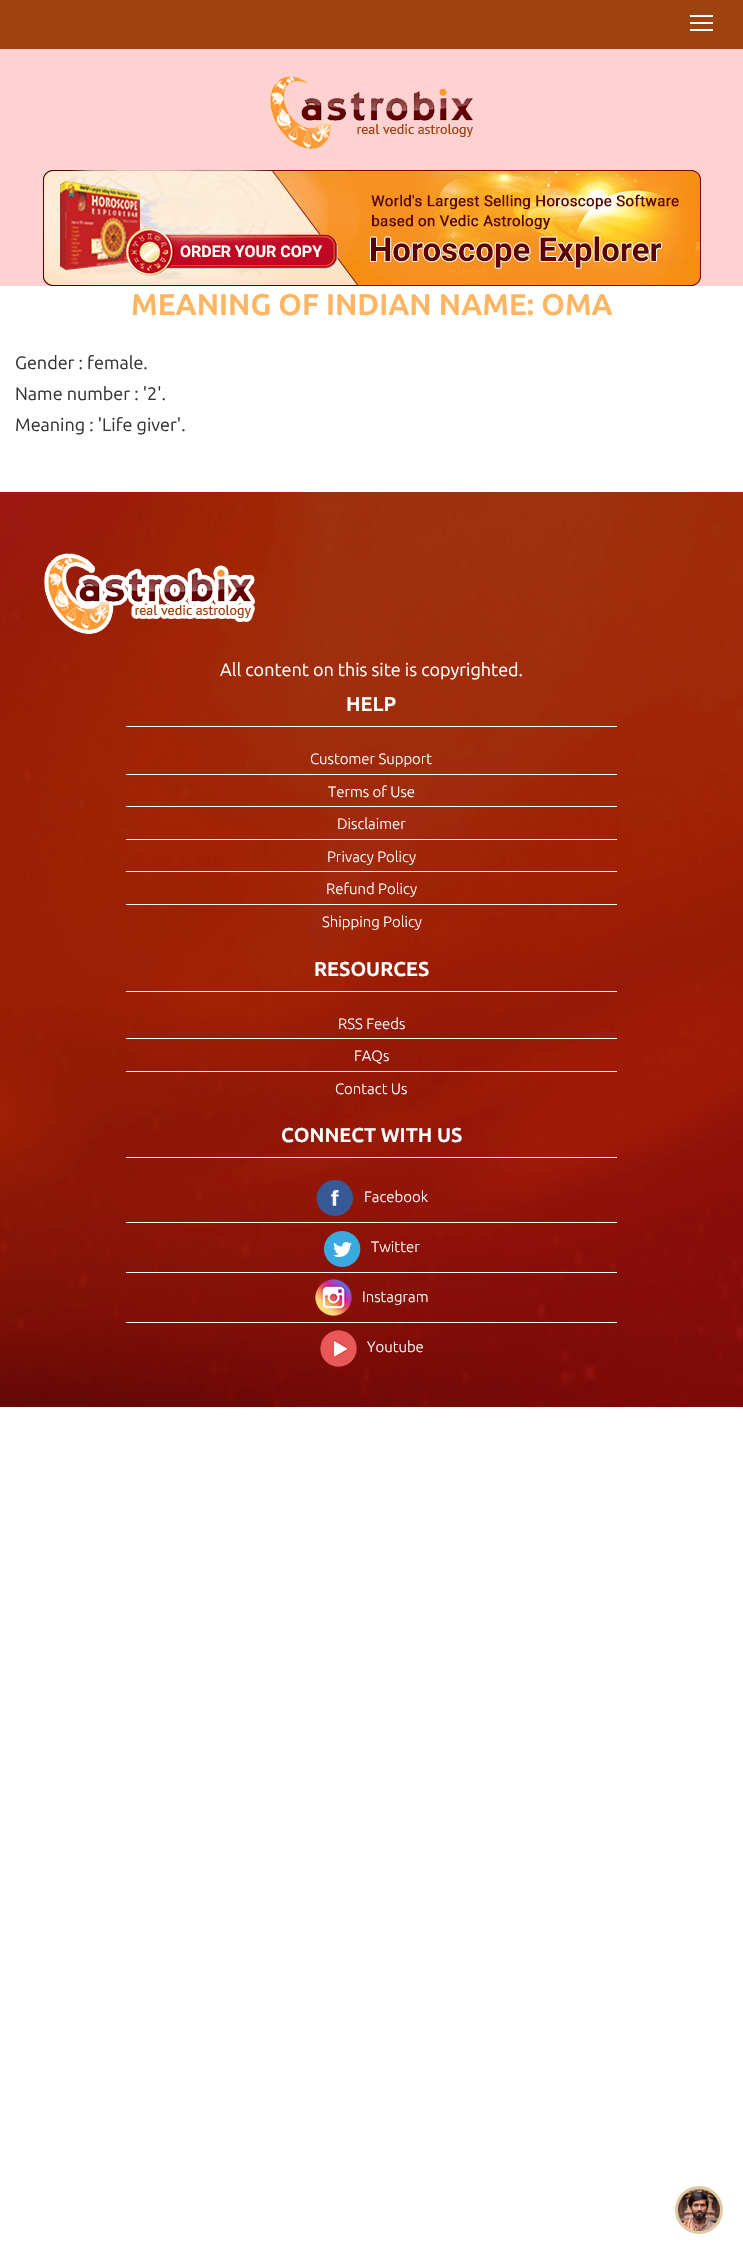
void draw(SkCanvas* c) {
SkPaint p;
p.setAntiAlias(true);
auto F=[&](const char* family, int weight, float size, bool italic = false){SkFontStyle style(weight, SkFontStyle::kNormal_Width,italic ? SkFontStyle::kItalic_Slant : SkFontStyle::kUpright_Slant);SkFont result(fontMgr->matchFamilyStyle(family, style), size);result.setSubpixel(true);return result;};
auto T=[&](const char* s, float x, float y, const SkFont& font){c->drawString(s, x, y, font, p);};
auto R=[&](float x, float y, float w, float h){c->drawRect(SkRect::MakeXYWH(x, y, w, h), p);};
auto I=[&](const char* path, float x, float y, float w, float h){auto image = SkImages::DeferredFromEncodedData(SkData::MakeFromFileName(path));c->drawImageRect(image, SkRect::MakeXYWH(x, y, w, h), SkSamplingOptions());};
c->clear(0xffffffff);
p.setColor(0xff9e4310);
R(0,0,743,49);
p.setColor(0xffffffff);
R(690,22,23,2);
R(690,15,23,2);
R(690,29,23,2);
p.setColor(0xffffd2d2);
R(0,49,743,237);
I("1.png",270,76,203,73);
I("2.png",43,170,658,116);
auto f1 = F("Ubuntu",700,30);
p.setColor(0xffffb561);
T("MEANING OF INDIAN NAME: OMA",131,315,f1);
auto f2 = F("Ubuntu",400,18);
p.setColor(0xff333333);
T("Gender : female.",15,369,f2);
T("Name number : '2'.",15,400,f2);
T("Meaning : 'Life giver'.",15,431,f2);
I("3.png",0,492,743,915);
I("4.png",44,553,212,82);
p.setColor(0xffffffff);
T("All content on this site is copyrighted.",220,676,f2);
R(126,726,491,1);
auto f3 = F("Ubuntu",700,20);
T("HELP",346,711,f3);
R(126,774,491,1);
auto f4 = F("Ubuntu",300,15);
T("Customer Support",310,764,f4);
R(126,806,491,1);
T("Terms of Use",328,797,f4);
R(126,839,491,1);
T("Disclaimer",337,829,f4);
R(126,871,491,1);
T("Privacy Policy",327,862,f4);
R(126,904,491,1);
T("Refund Policy",326,894,f4);
T("Shipping Policy",322,927,f4);
R(126,991,491,1);
T("RESOURCES",314,976,f3);
R(126,1038,491,1);
T("RSS Feeds",338,1029,f4);
R(126,1071,491,1);
T("FAQs",354,1061,f4);
T("Contact Us",335,1094,f4);
R(126,1157,491,1);
T("CONNECT WITH US",281,1142,f3);
R(126,1222,491,1);
I("5.png",316,1180,37,36);
T("Facebook",364,1202,f4);
R(126,1272,491,1);
I("6.png",324,1231,37,36);
T("Twitter",371,1252,f4);
R(126,1322,491,1);
I("7.png",315,1279,37,37);
T("Instagram",362,1302,f4);
I("8.png",320,1330,37,37);
T("Youtube",367,1352,f4);
p.setColor(0xffdfcaa6);
c->drawCircle(699,2210,24,p);
I("9.png",678,2189,42,42);
}
